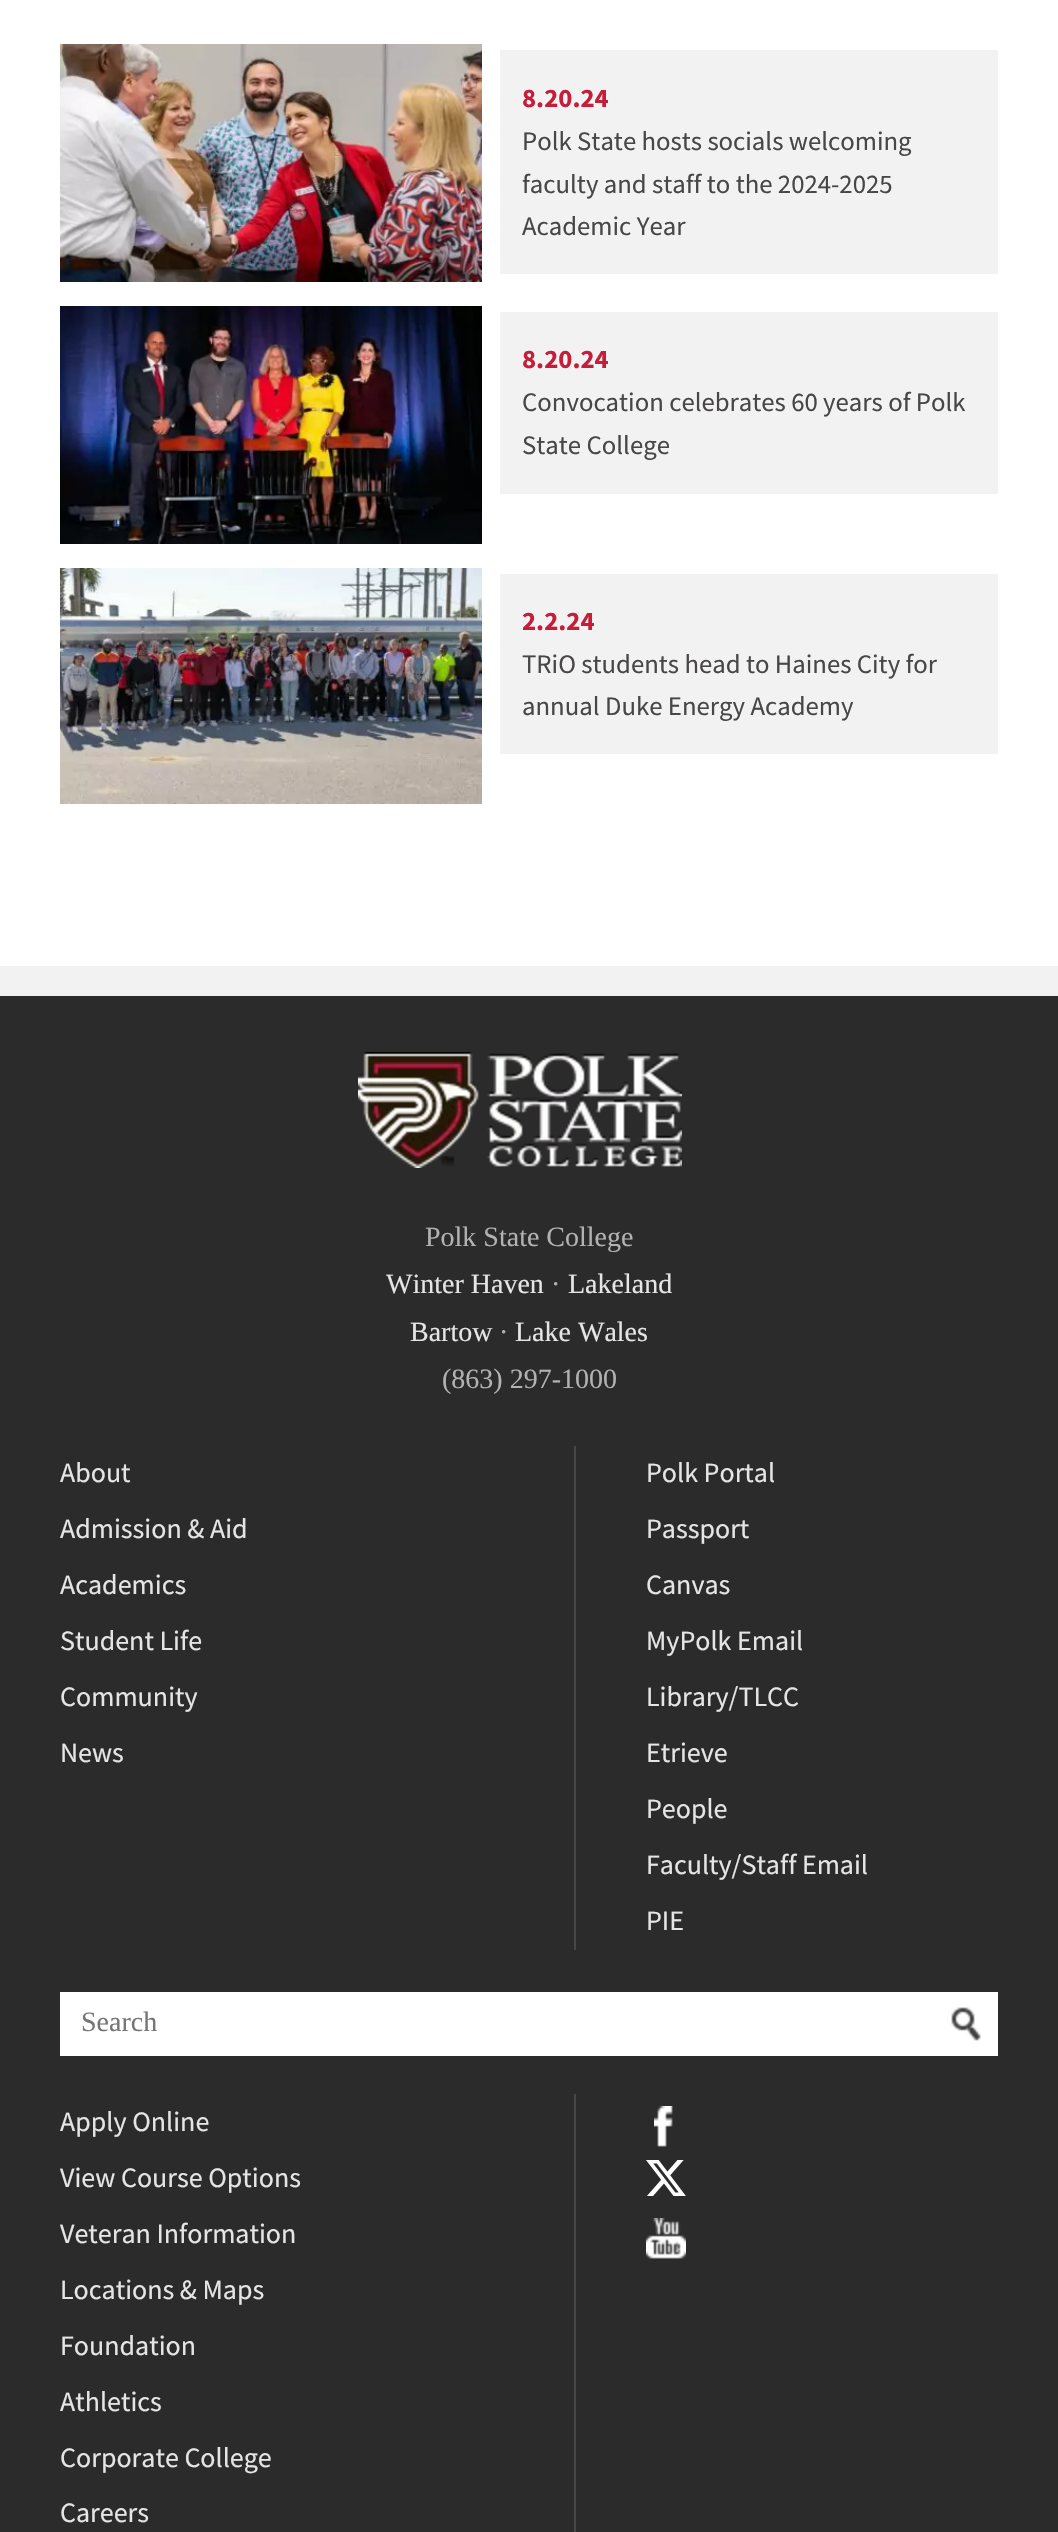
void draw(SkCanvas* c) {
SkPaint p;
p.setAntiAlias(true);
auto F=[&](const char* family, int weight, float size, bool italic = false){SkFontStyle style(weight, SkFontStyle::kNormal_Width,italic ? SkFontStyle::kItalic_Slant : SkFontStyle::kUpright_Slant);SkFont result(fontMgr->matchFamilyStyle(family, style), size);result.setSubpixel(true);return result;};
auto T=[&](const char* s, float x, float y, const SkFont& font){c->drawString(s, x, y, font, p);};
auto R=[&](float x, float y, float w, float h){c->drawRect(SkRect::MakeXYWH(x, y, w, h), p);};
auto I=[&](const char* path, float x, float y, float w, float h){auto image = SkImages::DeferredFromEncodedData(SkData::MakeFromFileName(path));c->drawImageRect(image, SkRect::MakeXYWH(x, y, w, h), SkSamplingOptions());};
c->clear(0xffffffff);
p.setColor(0xfff2f2f2);
R(0,966,1058,30);
I("1.png",60,44,422,238);
R(500,50,498,224);
auto f1 = F("Source Sans Pro",700,26.75);
p.setColor(0xffc41e3a);
T("8.20.24",522,107,f1);
auto f2 = F("Source Sans Pro",400,26.75);
p.setColor(0xff484647);
T("Polk State hosts socials welcoming",522,150,f2);
T("faculty and staff to the 2024-2025",522,193,f2);
T("Academic Year",522,235,f2);
I("2.png",60,306,422,238);
p.setColor(0xfff2f2f2);
R(500,312,498,182);
p.setColor(0xffc41e3a);
T("8.20.24",522,368,f1);
p.setColor(0xff484647);
T("Convocation celebrates 60 years of Polk",522,411,f2);
T("State College",522,454,f2);
I("3.png",60,568,422,236);
p.setColor(0xfff2f2f2);
R(500,574,498,180);
p.setColor(0xffc41e3a);
T("2.2.24",522,630,f1);
p.setColor(0xff484647);
T("TRiO students head to Haines City for",522,673,f2);
T("annual Duke Energy Academy",522,715,f2);
p.setColor(0xff2c2b2b);
R(0,996,1058,1536);
I("4.png",358,1052,324,116);
auto f3 = F("Liberation Serif",400,28);
p.setColor(0xffb3b2b2);
T("Polk State College",425,1246,f3);
p.setColor(0xffe6e5e5);
T("Winter Haven",386,1293,f3);
p.setColor(0xffb3b2b2);
T("·",551,1293,f3);
p.setColor(0xffe6e5e5);
T("Lakeland",568,1293,f3);
T("Bartow",410,1341,f3);
p.setColor(0xffb3b2b2);
T("·",499,1341,f3);
p.setColor(0xffe6e5e5);
T("Lake Wales",515,1341,f3);
p.setColor(0xffb3b2b2);
T("(863) 297-1000",442,1388,f3);
auto f4 = F("Source Sans Pro",400,28);
p.setColor(0xffe6e5e5);
T("About",60,1482,f4);
T("Admission & Aid",60,1538,f4);
T("Academics",60,1594,f4);
T("Student Life",60,1650,f4);
T("Community",60,1706,f4);
T("News",60,1762,f4);
p.setColor(0xff484647);
R(574,1446,2,504);
p.setColor(0xffe6e5e5);
T("Polk Portal",646,1482,f4);
T("Passport",646,1538,f4);
T("Canvas",646,1594,f4);
T("MyPolk Email",646,1650,f4);
T("Library/TLCC",646,1706,f4);
T("Etrieve",646,1762,f4);
T("People",646,1818,f4);
T("Faculty/Staff Email",646,1874,f4);
T("PIE",646,1930,f4);
p.setColor(0xffffffff);
R(60,1992,938,64);
p.setColor(0xff757575);
T("Search",81,2031,f3);
I("5.png",951,2007,30,34);
p.setColor(0xff484647);
R(574,2094,2,438);
p.setColor(0xffe6e5e5);
T("Apply Online",60,2131,f4);
T("View Course Options",60,2187,f4);
T("Veteran Information",60,2243,f4);
T("Locations & Maps",60,2299,f4);
T("Foundation",60,2355,f4);
T("Athletics",60,2411,f4);
T("Corporate College",60,2467,f4);
T("Careers",60,2522,f4);
I("6.png",654,2106,19,41);
I("7.png",646,2160,40,36);
I("8.png",646,2218,40,41);
}
